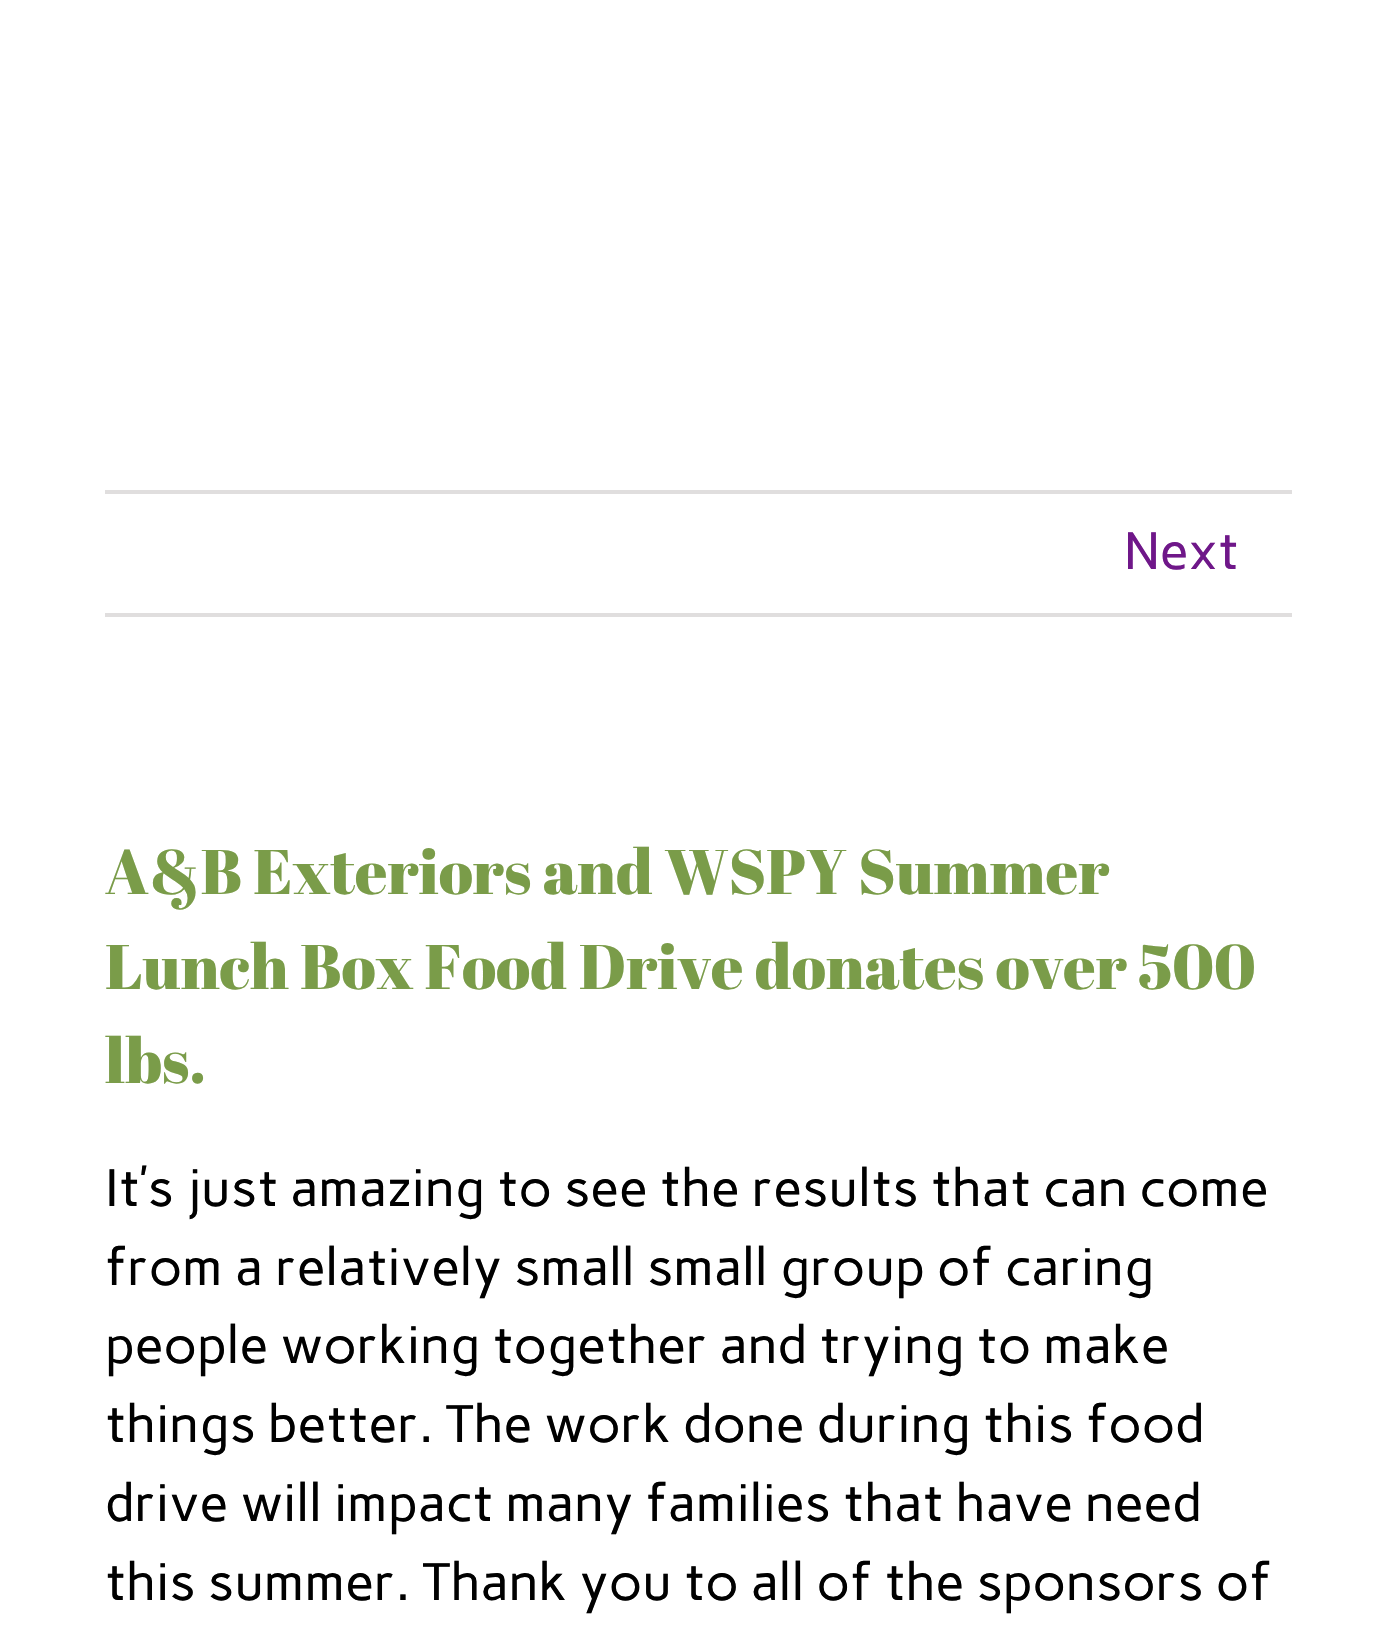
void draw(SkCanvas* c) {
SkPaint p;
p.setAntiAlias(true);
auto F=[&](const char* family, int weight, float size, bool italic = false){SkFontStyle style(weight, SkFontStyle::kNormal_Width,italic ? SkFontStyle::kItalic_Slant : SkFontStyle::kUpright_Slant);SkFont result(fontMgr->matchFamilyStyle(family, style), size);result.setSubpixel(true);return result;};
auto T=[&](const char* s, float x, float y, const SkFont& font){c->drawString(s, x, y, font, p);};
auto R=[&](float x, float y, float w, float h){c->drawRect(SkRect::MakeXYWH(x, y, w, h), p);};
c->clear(0xffffffff);
p.setColor(0xffe0dede);
R(105,490,1187,4);
R(105,613,1187,4);
auto f1 = F("Carme",400,52.5);
p.setColor(0xff6f1789);
T("Next",1124,569,f1);
auto f2 = F("Abril Fatface",400,63);
p.setColor(0xff7a9c49);
T("A&B Exteriors and WSPY Summer",105,894,f2);
T("Lunch Box Food Drive donates over 500",105,989,f2);
T("lbs.",105,1083,f2);
p.setColor(0xff000000);
T("It’s just amazing to see the results that can come",105,1206,f1);
T("from a relatively small small group of caring",105,1285,f1);
T("people working together and trying to make",105,1363,f1);
T("things better. The work done during this food",105,1442,f1);
T("drive will impact many families that have need",105,1521,f1);
T("this summer. Thank you to all of the sponsors of",105,1600,f1);
}
